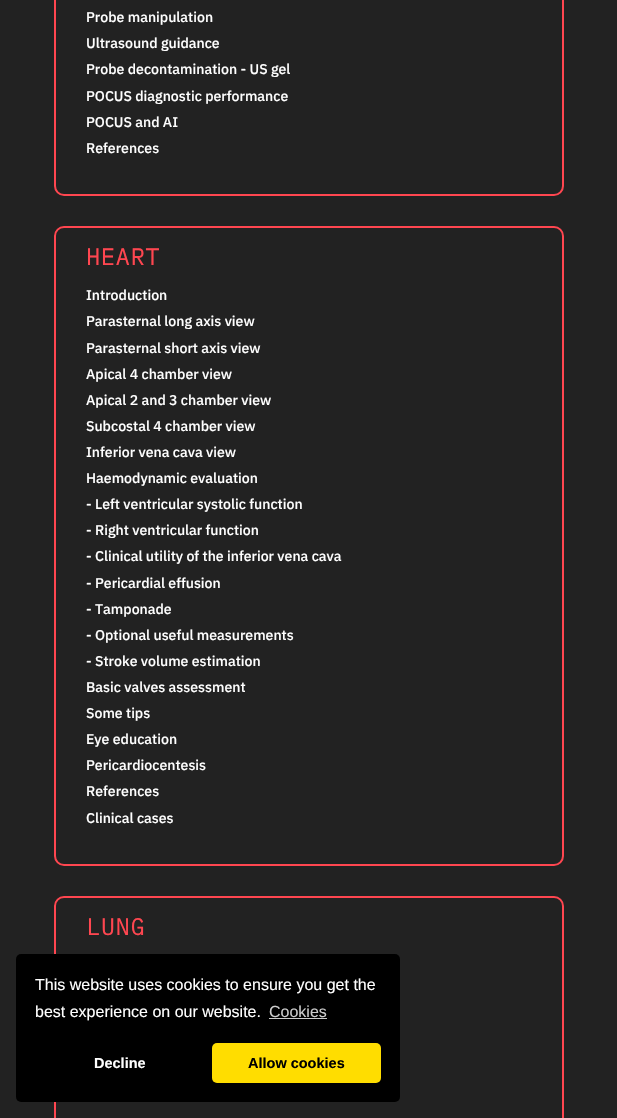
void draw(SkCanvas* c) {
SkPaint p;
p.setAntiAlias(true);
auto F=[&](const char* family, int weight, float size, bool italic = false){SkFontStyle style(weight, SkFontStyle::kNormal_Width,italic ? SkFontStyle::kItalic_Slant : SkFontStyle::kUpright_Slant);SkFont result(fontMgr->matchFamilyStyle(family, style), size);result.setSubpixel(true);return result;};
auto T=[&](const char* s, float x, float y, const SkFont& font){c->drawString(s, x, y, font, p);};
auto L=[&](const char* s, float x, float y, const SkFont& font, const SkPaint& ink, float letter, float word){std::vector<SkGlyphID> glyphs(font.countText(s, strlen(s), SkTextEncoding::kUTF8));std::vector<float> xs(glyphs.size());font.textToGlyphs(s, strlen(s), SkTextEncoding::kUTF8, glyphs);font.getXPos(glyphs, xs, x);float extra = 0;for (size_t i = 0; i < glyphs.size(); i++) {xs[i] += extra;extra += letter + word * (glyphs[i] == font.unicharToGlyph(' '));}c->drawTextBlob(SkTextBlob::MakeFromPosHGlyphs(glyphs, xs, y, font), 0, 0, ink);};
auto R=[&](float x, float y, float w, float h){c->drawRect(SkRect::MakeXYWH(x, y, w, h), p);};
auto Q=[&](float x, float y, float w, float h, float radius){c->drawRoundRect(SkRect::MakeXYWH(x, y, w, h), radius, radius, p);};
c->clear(0xff222222);
p.setStroke(true);
p.setStrokeWidth(2);
p.setColor(0xffff4650);
c->drawRoundRect(SkRect::MakeXYWH(55,-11,508,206),9,9,p);
auto f1 = F("IBM Plex Sans",500,14.1);
p.setStroke(false);
p.setColor(0xffffffff);
T("Probe manipulation",86,22,f1);
T("Ultrasound guidance",86,48,f1);
T("Probe decontamination - US gel",86,74,f1);
T("POCUS diagnostic performance",86,101,f1);
T("POCUS and AI",86,127,f1);
T("References",86,153,f1);
p.setStroke(true);
p.setColor(0xffff4650);
c->drawRoundRect(SkRect::MakeXYWH(55,227,508,638),9,9,p);
auto f2 = F("IBM Plex Mono",700,23);
p.setStroke(false);
L("HEART",86,265,f2,p,1,0);
p.setColor(0xffffffff);
T("Introduction",86,300,f1);
T("Parasternal long axis view",86,326,f1);
T("Parasternal short axis view",86,353,f1);
T("Apical 4 chamber view",86,379,f1);
T("Apical 2 and 3 chamber view",86,405,f1);
T("Subcostal 4 chamber view",86,431,f1);
T("Inferior vena cava view",86,457,f1);
T("Haemodynamic evaluation",86,483,f1);
T("- Left ventricular systolic function",86,509,f1);
T("- Right ventricular function",86,535,f1);
T("- Clinical utility of the inferior vena cava",86,561,f1);
T("- Pericardial effusion",86,588,f1);
T("- Tamponade",86,614,f1);
T("- Optional useful measurements",86,640,f1);
T("- Stroke volume estimation",86,666,f1);
T("Basic valves assessment",86,692,f1);
T("Some tips",86,718,f1);
T("Eye education",86,744,f1);
T("Pericardiocentesis",86,770,f1);
T("References",86,796,f1);
T("Clinical cases",86,823,f1);
p.setStroke(true);
p.setColor(0xffff4650);
c->drawRoundRect(SkRect::MakeXYWH(55,897,508,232),9,9,p);
p.setStroke(false);
L("LUNG",86,935,f2,p,1,0);
p.setColor(0xff000000);
Q(16,954,384,148,5);
auto f3 = F("Liberation Sans",400,16);
p.setColor(0xffffffff);
T("This website uses cookies to ensure you get the",35,990,f3);
T("best experience on our website.",35,1017,f3);
p.setColor(0xffcccccc);
T("Cookies",269,1017,f3);
R(269,1018,58,1);
auto f4 = F("Liberation Sans",700,14.5);
p.setColor(0xffffffff);
T("Decline",94,1068,f4);
p.setColor(0xffffdd00);
Q(212,1043,169,40,5);
p.setColor(0xff000000);
T("Allow cookies",248,1068,f4);
}
